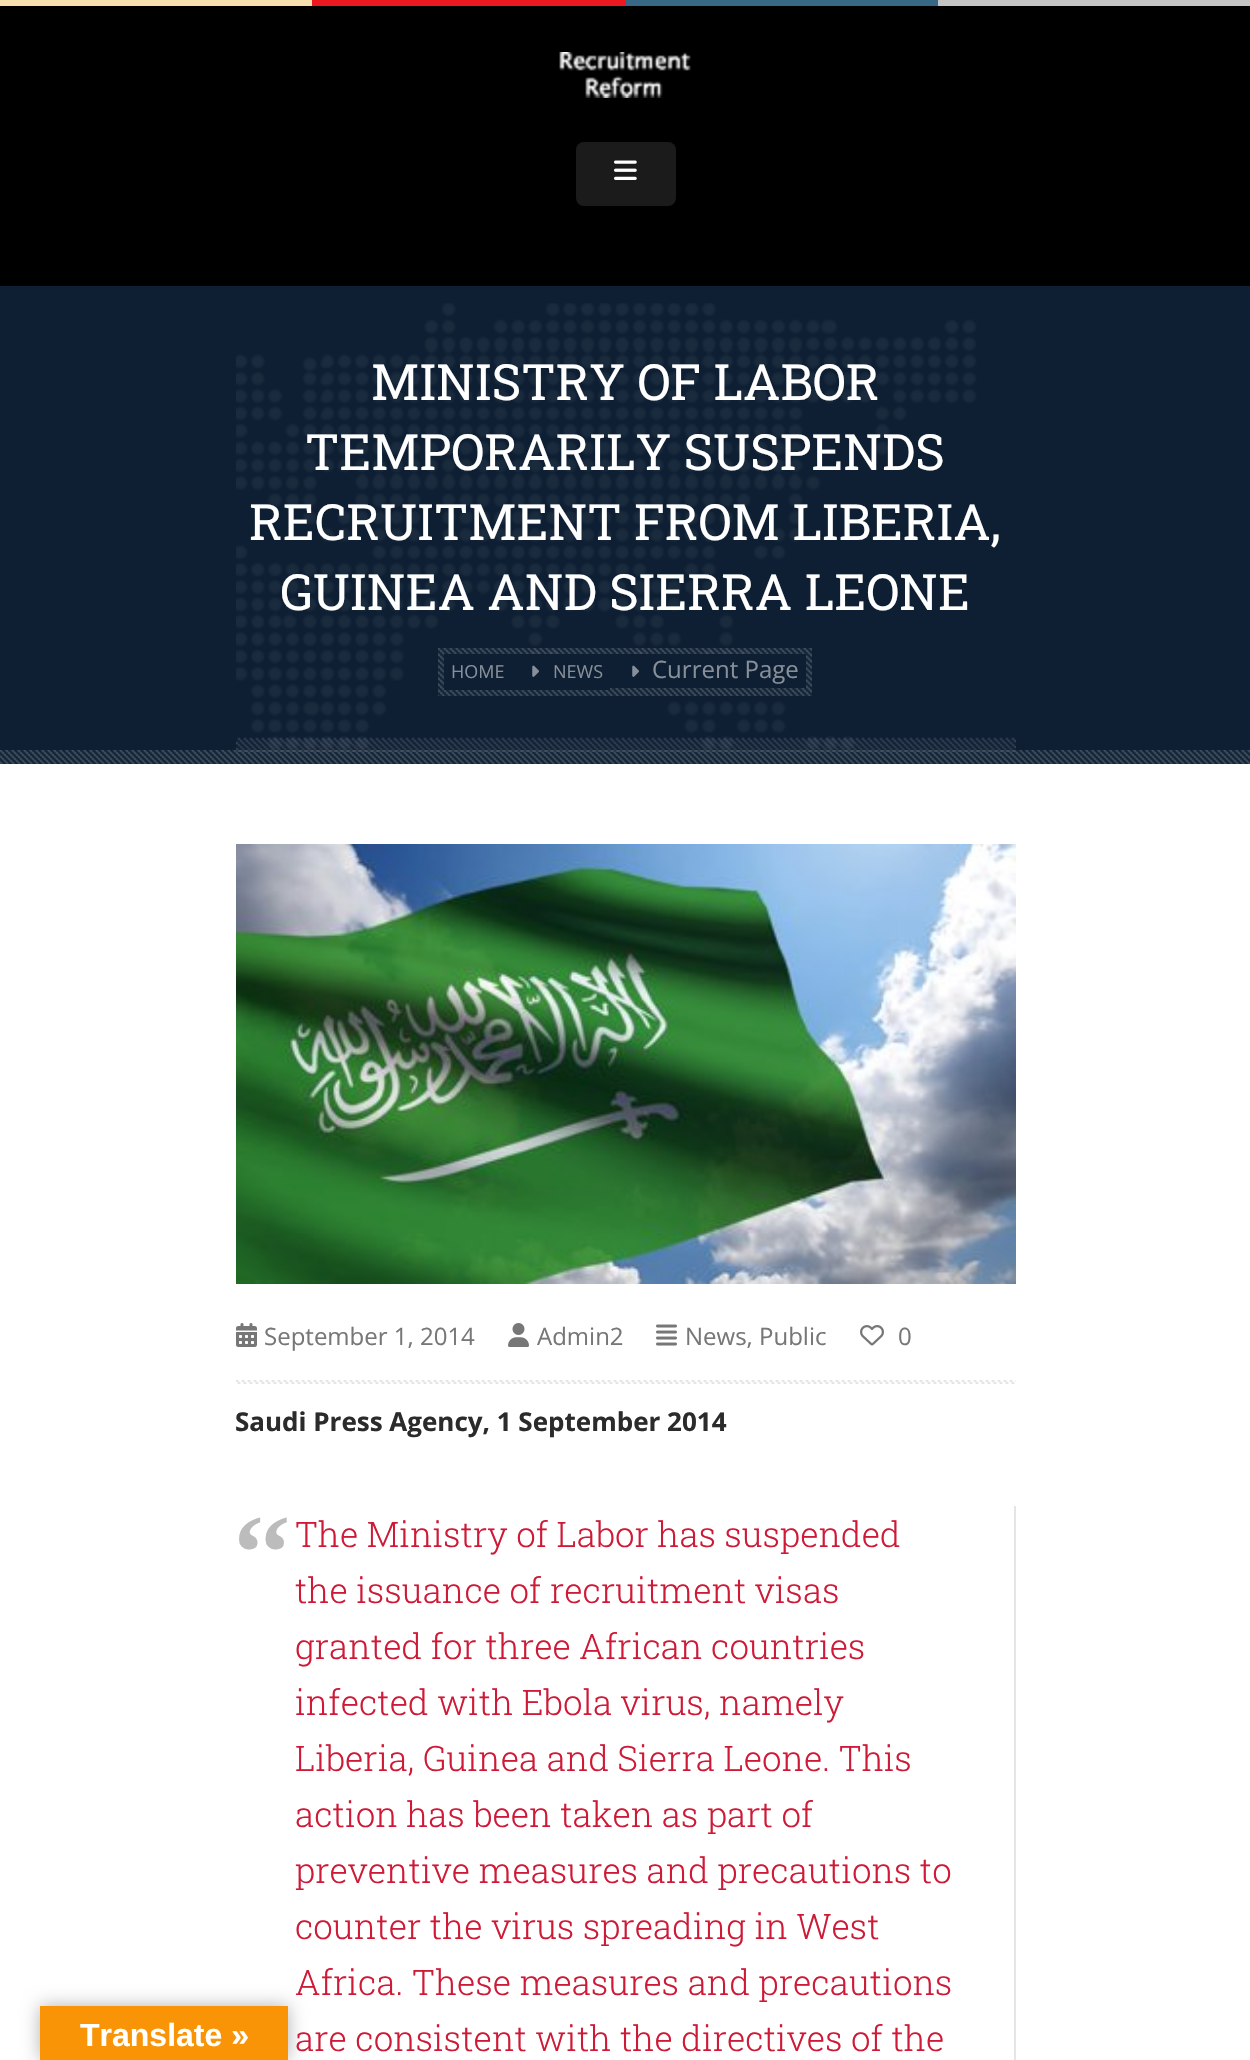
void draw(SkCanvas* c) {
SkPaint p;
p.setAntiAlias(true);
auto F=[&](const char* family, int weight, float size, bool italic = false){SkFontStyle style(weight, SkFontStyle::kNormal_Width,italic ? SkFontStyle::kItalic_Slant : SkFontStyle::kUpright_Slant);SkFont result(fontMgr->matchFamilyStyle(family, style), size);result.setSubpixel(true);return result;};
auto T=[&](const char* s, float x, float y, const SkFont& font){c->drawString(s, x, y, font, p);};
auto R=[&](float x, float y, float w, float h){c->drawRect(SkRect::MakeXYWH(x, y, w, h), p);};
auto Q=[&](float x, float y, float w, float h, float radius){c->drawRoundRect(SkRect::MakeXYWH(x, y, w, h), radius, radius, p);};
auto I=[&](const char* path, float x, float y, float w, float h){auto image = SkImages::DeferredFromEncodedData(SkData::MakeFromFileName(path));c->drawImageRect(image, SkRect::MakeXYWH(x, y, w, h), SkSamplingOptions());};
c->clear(0xffffffff);
p.setColor(0x4d000000);
p.setMaskFilter(SkMaskFilter::MakeBlur(kNormal_SkBlurStyle, 9));
c->drawRect(SkRect::MakeXYWH(40,2006,248,54),p);
p.setMaskFilter(nullptr);
p.setColor(0xfff89406);
R(40,2006,248,54);
auto f1 = F("Liberation Sans",700,32);
p.setColor(0xffffffff);
T("Translate »",80,2046,f1);
p.setColor(0xff000000);
R(0,6,1250,280);
p.setColor(0xfff5e0ae);
R(0,0,312,6);
p.setColor(0xffec1821);
R(312,0,314,6);
p.setColor(0xff376987);
R(626,0,312,6);
p.setColor(0xffc4c4c4);
R(938,0,312,6);
I("1.png",559,52,132,46);
p.setColor(0xff1b1b1b);
Q(576,142,100,64,8);
I("2.png",614,160,23,20);
p.setColor(0xff0e1f33);
R(0,286,1250,478);
I("3.png",236,303,780,449);
auto f2 = F("Roboto Slab",400,50);
p.setColor(0xffffffff);
T("MINISTRY OF LABOR",371,400,f2);
T("TEMPORARILY SUSPENDS",305,470,f2);
T("RECRUITMENT FROM LIBERIA,",249,540,f2);
T("GUINEA AND SIERRA LEONE",280,610,f2);
I("4.png",438,648,374,48);
p.setColor(0xff0e1f33);
R(444,654,166,36);
auto f3 = F("Open Sans",400,18);
p.setColor(0xff878f99);
T("HOME",451,678,f3);
I("5.png",532,665,7,12);
T("NEWS",553,678,f3);
p.setColor(0xff0e1f33);
R(610,654,196,34);
I("5.png",632,665,7,12);
auto f4 = F("Open Sans",400,24);
p.setColor(0xff878f99);
T("Current Page",652,678,f4);
I("6.png",0,750,1250,14);
I("7.png",236,844,780,440);
I("8.png",236,1380,780,4);
I("9.png",236,1323,21,24);
p.setColor(0xff777777);
T("September 1, 2014",264,1345,f4);
I("10.png",508,1323,21,24);
T("Admin2",537,1345,f4);
I("11.png",656,1324,21,22);
T("News, Public",685,1345,f4);
I("12.png",860,1325,24,21);
T("0",898,1345,f4);
auto f5 = F("Open Sans",700,26);
p.setColor(0xff2b2b2b);
T("Saudi Press Agency, 1 September 2014",235,1431,f5);
p.setColor(0xffe5e5e5);
R(1014,1506,2,554);
auto f6 = F("Liberation Serif",700,106);
p.setColor(0xffbcbcbc);
c->save();
c->rotate(180,288,1534);
T(",,",288,1534,f6);
c->restore();
auto f7 = F("Roboto Slab",300,35);
p.setColor(0xffce1a37);
T("The Ministry of Labor has suspended",295,1547,f7);
T("the issuance of recruitment visas",295,1603,f7);
T("granted for three African countries",295,1659,f7);
T("infected with Ebola virus, namely",295,1715,f7);
T("Liberia, Guinea and Sierra Leone. This",295,1771,f7);
T("action has been taken as part of",295,1827,f7);
T("preventive measures and precautions to",295,1883,f7);
T("counter the virus spreading in West",295,1939,f7);
T("Africa. These measures and precautions",295,1995,f7);
T("are consistent with the directives of the",295,2051,f7);
}
